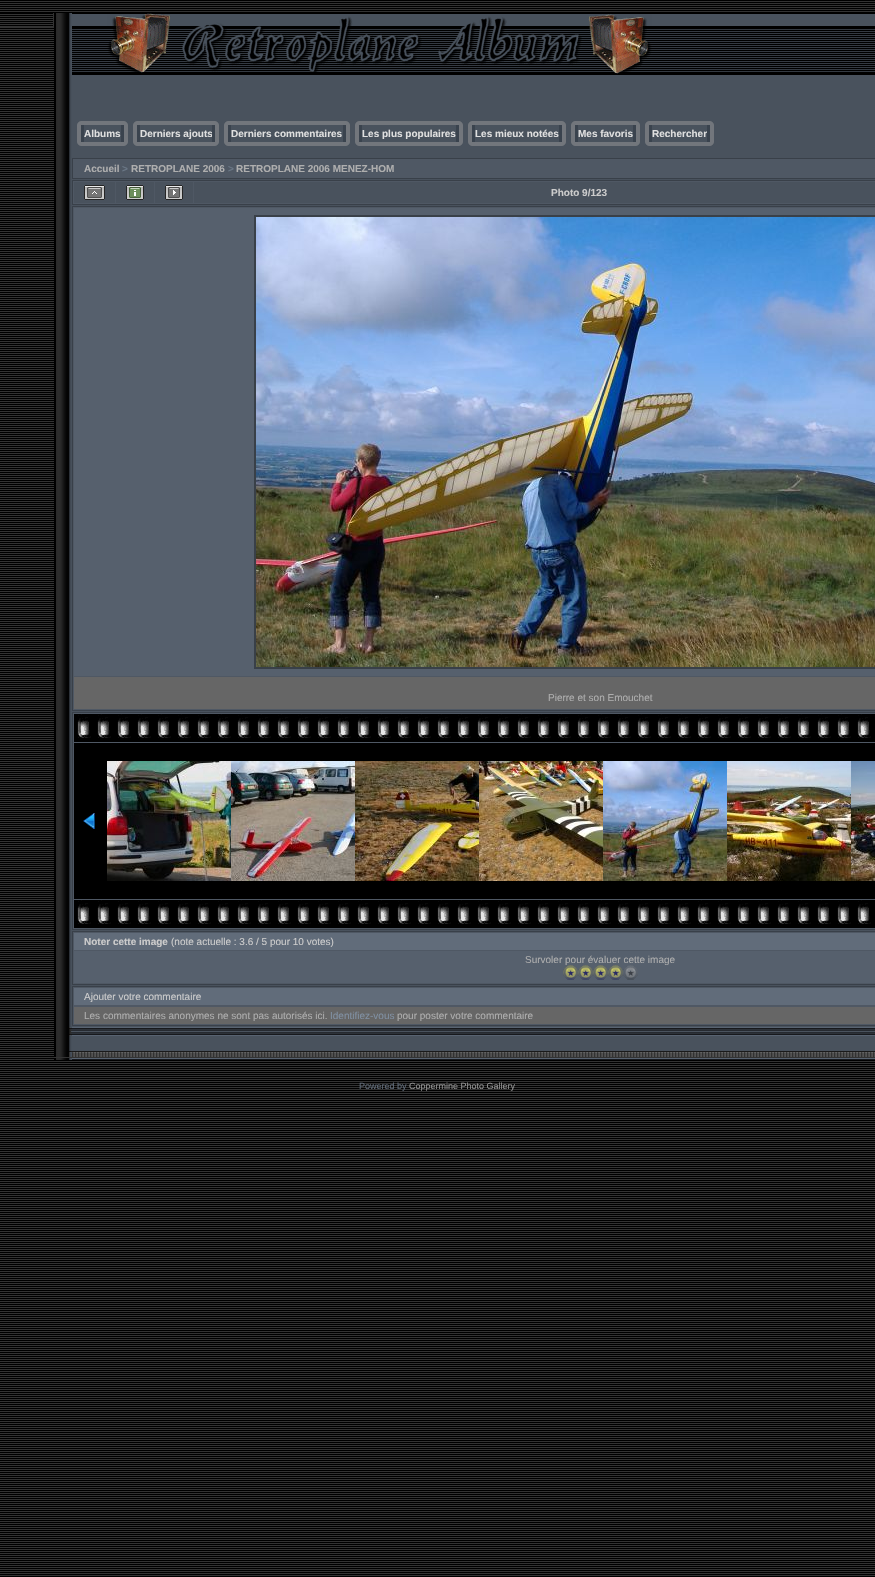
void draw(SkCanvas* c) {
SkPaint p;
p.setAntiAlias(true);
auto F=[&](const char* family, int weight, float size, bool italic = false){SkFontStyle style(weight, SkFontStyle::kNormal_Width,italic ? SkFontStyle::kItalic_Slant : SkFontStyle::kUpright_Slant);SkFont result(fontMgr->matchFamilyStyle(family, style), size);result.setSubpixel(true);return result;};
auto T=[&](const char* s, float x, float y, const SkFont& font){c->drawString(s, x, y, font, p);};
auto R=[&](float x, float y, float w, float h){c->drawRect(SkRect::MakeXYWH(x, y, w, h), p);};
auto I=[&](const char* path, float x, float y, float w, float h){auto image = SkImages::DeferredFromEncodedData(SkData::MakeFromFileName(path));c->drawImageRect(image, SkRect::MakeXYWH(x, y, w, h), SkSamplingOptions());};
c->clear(0xff000000);
I("1.png",0,1,875,1575);
I("2.png",0,13,54,14);
I("3.png",54,13,18,62);
I("4.png",72,13,803,61);
I("5.png",107,13,545,61);
I("6.png",54,75,18,952);
p.setColor(0xff49525d);
R(72,75,803,952);
I("7.png",77,121,7,25);
I("8.png",84,121,37,25);
auto f1 = F("Liberation Sans",700,10);
p.setColor(0xffdfdfdf);
T("Albums",84,137,f1);
I("9.png",121,121,7,25);
I("7.png",133,121,7,25);
I("10.png",140,121,72,25);
T("Derniers ajouts",140,137,f1);
I("9.png",212,121,7,25);
I("7.png",224,121,7,25);
I("11.png",231,121,112,25);
T("Derniers commentaires",231,137,f1);
I("9.png",343,121,7,25);
I("7.png",355,121,7,25);
I("12.png",362,121,94,25);
T("Les plus populaires",362,137,f1);
I("9.png",456,121,7,25);
I("7.png",468,121,7,25);
I("13.png",475,121,84,25);
T("Les mieux notées",475,137,f1);
I("9.png",559,121,7,25);
I("7.png",571,121,7,25);
I("14.png",578,121,55,25);
T("Mes favoris",578,137,f1);
I("9.png",633,121,7,25);
I("7.png",645,121,7,25);
I("14.png",652,121,55,25);
T("Rechercher",652,137,f1);
I("9.png",707,121,7,25);
p.setColor(0xff4f5864);
c->drawRect(SkRect::MakeXYWH(72.5,158.5,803,20),p);
p.setStroke(true);
p.setStrokeWidth(1);
p.setColor(0xff394049);
c->drawRect(SkRect::MakeXYWH(72.5,158.5,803,20),p);
p.setStroke(false);
p.setColor(0xffaeaeae);
T("Accueil",84,172,f1);
p.setColor(0xff6a7786);
T(">",122,172,f1);
p.setColor(0xffaeaeae);
T("RETROPLANE 2006",131,172,f1);
p.setColor(0xff6a7786);
T(">",228,172,f1);
p.setColor(0xffaeaeae);
T("RETROPLANE 2006 MENEZ-HOM",236,172,f1);
p.setColor(0xff4f5864);
c->drawRect(SkRect::MakeXYWH(72.5,180.5,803,24),p);
p.setStroke(true);
p.setColor(0xff394049);
c->drawRect(SkRect::MakeXYWH(72.5,180.5,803,24),p);
p.setStroke(false);
p.setColor(0xff49525d);
R(74,182,41,21);
I("15.png",84,185,21,15);
R(116,182,38,21);
I("16.png",126,185,18,15);
R(155,182,38,21);
I("17.png",165,185,18,15);
R(194,182,681,21);
p.setColor(0xffcccccc);
T("Photo 9/123",551,196,f1);
p.setColor(0xff4f5864);
c->drawRect(SkRect::MakeXYWH(72.5,206.5,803,504),p);
p.setStroke(true);
p.setColor(0xff394049);
c->drawRect(SkRect::MakeXYWH(72.5,206.5,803,504),p);
p.setStroke(false);
p.setColor(0xff56606d);
R(74,208,801,468);
p.setStroke(true);
p.setStrokeWidth(2);
p.setColor(0xff394048);
c->drawRect(SkRect::MakeXYWH(255,216,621,452),p);
I("18.png",256,217,619,450);
p.setStroke(false);
p.setColor(0xff666666);
R(74,677,801,32);
auto f2 = F("Liberation Sans",400,10);
p.setColor(0xffaeaeae);
T("Pierre et son Emouchet",548,701,f2);
p.setColor(0xff4f5864);
c->drawRect(SkRect::MakeXYWH(72.5,712.5,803,217),p);
p.setStroke(true);
p.setStrokeWidth(1);
p.setColor(0xff394049);
c->drawRect(SkRect::MakeXYWH(72.5,712.5,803,217),p);
p.setStroke(false);
p.setColor(0xff000000);
R(74,714,801,28);
I("19.png",77,714,794,24);
R(74,743,801,156);
I("20.png",83,813,12,16);
I("21.png",107,761,124,120);
I("22.png",231,761,124,120);
I("23.png",355,761,124,120);
I("24.png",479,761,124,120);
I("25.png",603,761,124,120);
I("26.png",727,761,124,120);
I("27.png",851,761,24,120);
R(74,900,801,28);
I("19.png",77,900,794,24);
p.setColor(0xff4f5864);
c->drawRect(SkRect::MakeXYWH(72.5,931.5,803,53),p);
p.setStroke(true);
p.setColor(0xff394049);
c->drawRect(SkRect::MakeXYWH(72.5,931.5,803,53),p);
p.setStroke(false);
p.setColor(0xff616c7a);
R(74,933,801,17);
p.setColor(0xffcccccc);
T("Noter cette image",84,945,f1);
T("(note actuelle : 3.6 / 5 pour 10 votes)",171,945,f2);
p.setColor(0xff56606d);
R(74,951,801,32);
p.setColor(0xffaeaeae);
T("Survoler pour évaluer cette image",525,963,f2);
I("28.png",563,965,15,15);
I("29.png",578,965,15,15);
I("29.png",593,965,15,15);
I("29.png",608,965,15,15);
I("30.png",623,965,15,15);
p.setColor(0xff4f5864);
c->drawRect(SkRect::MakeXYWH(72.5,986.5,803,39),p);
p.setStroke(true);
p.setColor(0xff394049);
c->drawRect(SkRect::MakeXYWH(72.5,986.5,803,39),p);
p.setStroke(false);
p.setColor(0xff616c7a);
R(74,988,801,17);
p.setColor(0xffcccccc);
T("Ajouter votre commentaire",84,1000,f2);
p.setColor(0xff666666);
R(74,1007,801,17);
p.setColor(0xffaeaeae);
T("Les commentaires anonymes ne sont pas autorisés ici.",84,1019,f2);
p.setColor(0xff8090a3);
T("Identifiez-vous",330,1019,f2);
p.setColor(0xffaeaeae);
T("pour poster votre commentaire",397,1019,f2);
I("31.png",54,1058,18,2);
I("32.png",54,1027,18,31);
I("33.png",72,1027,803,33);
auto f3 = F("Liberation Sans",400,9);
p.setColor(0xff616c7a);
T("Powered by",359,1089,f3);
p.setColor(0xff949494);
T("Coppermine Photo Gallery",409,1089,f3);
}
